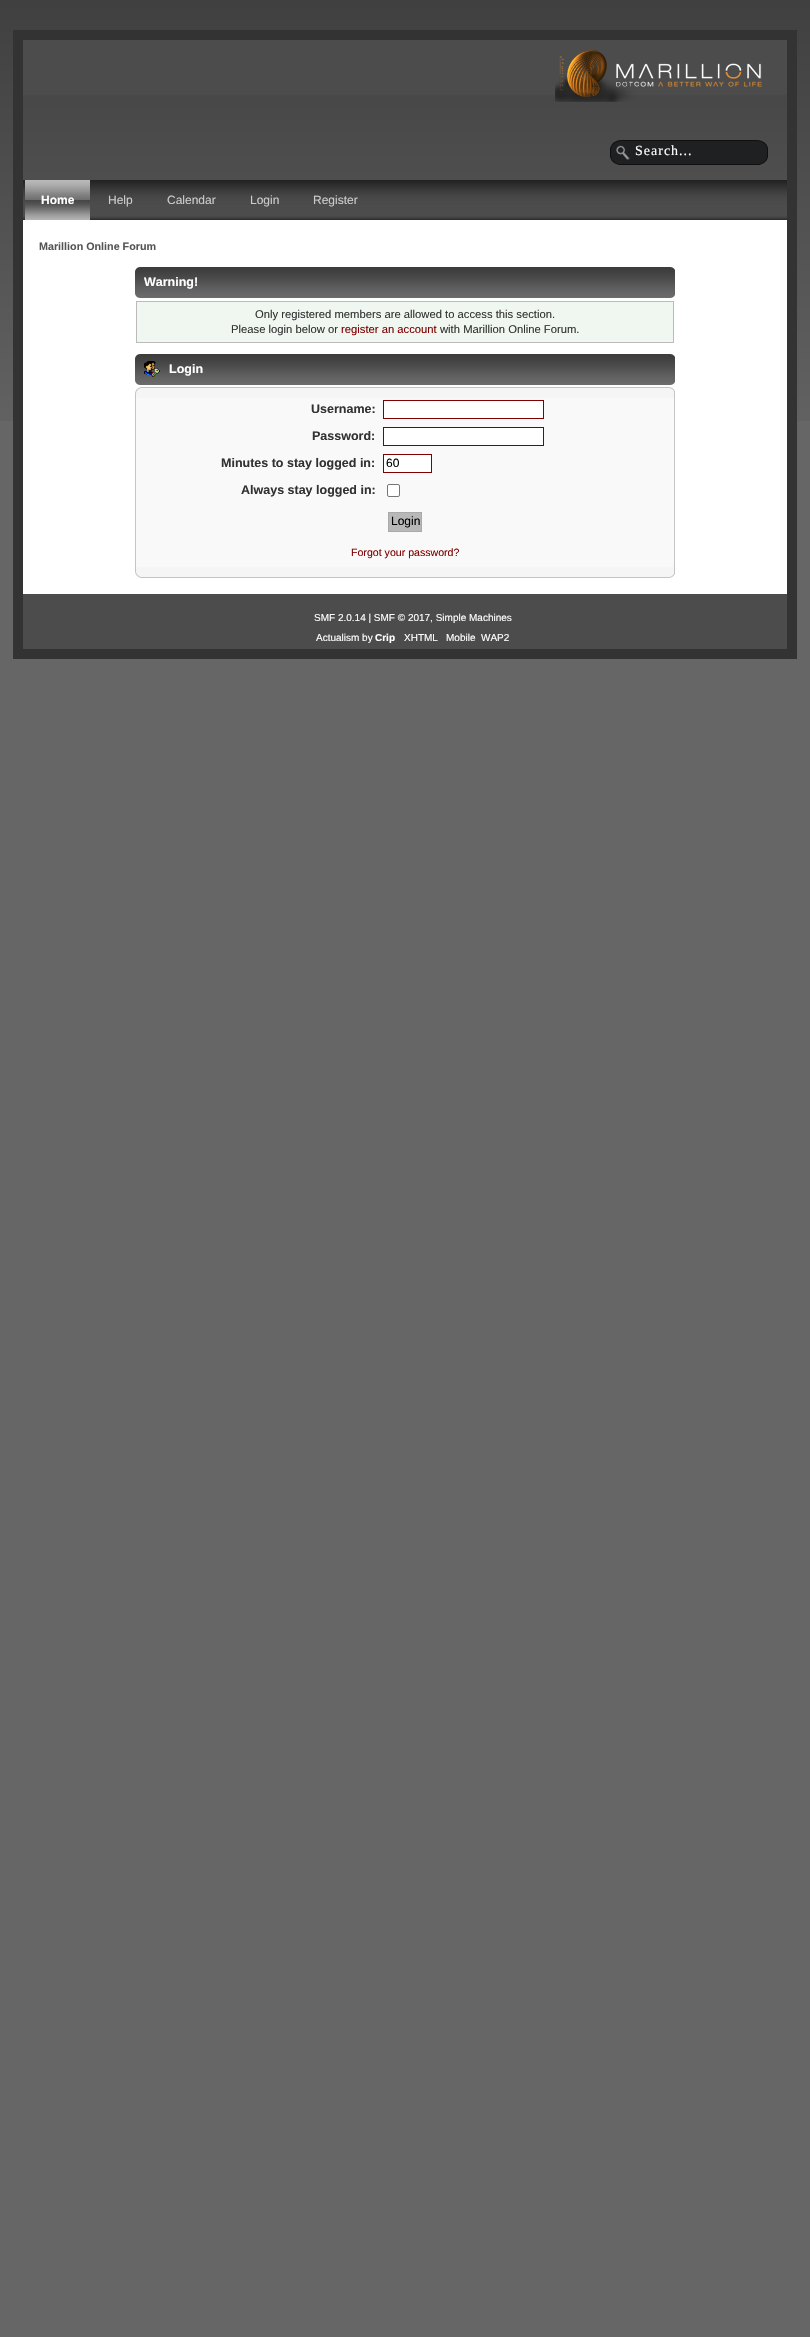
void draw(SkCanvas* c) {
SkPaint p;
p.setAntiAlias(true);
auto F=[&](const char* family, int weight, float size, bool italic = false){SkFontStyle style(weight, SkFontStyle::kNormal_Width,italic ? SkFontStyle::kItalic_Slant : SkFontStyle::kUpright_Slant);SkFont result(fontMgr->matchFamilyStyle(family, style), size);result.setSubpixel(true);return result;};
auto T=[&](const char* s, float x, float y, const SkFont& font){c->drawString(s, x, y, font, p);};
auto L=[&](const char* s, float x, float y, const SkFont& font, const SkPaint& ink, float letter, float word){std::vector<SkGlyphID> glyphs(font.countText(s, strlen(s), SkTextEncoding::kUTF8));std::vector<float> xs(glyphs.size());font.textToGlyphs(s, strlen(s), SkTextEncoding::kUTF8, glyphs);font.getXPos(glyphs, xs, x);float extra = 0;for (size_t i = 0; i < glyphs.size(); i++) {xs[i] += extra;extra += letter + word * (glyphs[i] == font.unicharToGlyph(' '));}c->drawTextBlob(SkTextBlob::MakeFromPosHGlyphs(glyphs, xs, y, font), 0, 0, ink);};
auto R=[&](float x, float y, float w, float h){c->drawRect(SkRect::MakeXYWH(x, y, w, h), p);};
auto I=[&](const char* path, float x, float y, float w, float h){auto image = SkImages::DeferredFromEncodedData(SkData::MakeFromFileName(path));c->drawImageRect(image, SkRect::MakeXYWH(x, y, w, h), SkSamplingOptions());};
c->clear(0xff666666);
I("1.png",0,0,810,421);
p.setStroke(true);
p.setStrokeWidth(10);
p.setColor(0xff333333);
c->drawRect(SkRect::MakeXYWH(18,35,774,619),p);
p.setStroke(false);
p.setColor(0xff4c4c4c);
R(23,40,764,55);
I("2.png",555,50,207,52);
I("3.png",610,140,158,25);
auto f1 = F("Liberation Serif",400,14);
p.setColor(0xffffffff);
L("Search...",635,155,f1,p,1,0);
I("4.png",23,180,764,40);
I("5.png",25,180,65,40);
auto f2 = F("Liberation Sans",700,12);
T("Home",41,204,f2);
auto f3 = F("Liberation Sans",400,12);
p.setColor(0xffcccccc);
T("Help",108,204,f3);
T("Calendar",167,204,f3);
T("Login",250,204,f3);
T("Register",313,204,f3);
p.setColor(0xffffffff);
R(23,220,764,374);
auto f4 = F("Liberation Sans",700,10.75);
p.setColor(0xff555555);
T("Marillion Online Forum",39,250,f4);
I("6.png",135,267,535,31);
I("7.png",670,267,5,31);
auto f5 = F("Liberation Sans",700,12.5);
p.setColor(0xffffffff);
T("Warning!",144,286,f5);
p.setColor(0xfff0f6f0);
c->drawRect(SkRect::MakeXYWH(136.5,301.5,537,41),p);
p.setStroke(true);
p.setStrokeWidth(1);
p.setColor(0xffbbbbbb);
c->drawRect(SkRect::MakeXYWH(136.5,301.5,537,41),p);
auto f6 = F("Liberation Sans",400,11.25);
p.setStroke(false);
p.setColor(0xff323232);
T("Only registered members are allowed to access this section.",255,318,f6);
T("Please login below or",231,333,f6);
p.setColor(0xff800000);
T("register an account",341,333,f6);
p.setColor(0xff323232);
T("with Marillion Online Forum.",440,333,f6);
I("6.png",135,354,535,31);
I("7.png",670,354,5,31);
I("8.png",144,361,16,16);
p.setColor(0xffffffff);
T("Login",169,373,f5);
I("9.png",135,387,534,11);
I("10.png",669,387,6,11);
p.setColor(0xfff9f9f9);
R(136,398,538,169);
p.setColor(0xffc5c5c5);
R(674,398,1,169);
R(135,398,1,169);
p.setColor(0xff323232);
T("Username:",311,413,f5);
p.setColor(0xffffffff);
c->drawRect(SkRect::MakeXYWH(383.5,400.5,160,18),p);
p.setStroke(true);
p.setColor(0xff800000);
c->drawRect(SkRect::MakeXYWH(383.5,400.5,160,18),p);
p.setStroke(false);
p.setColor(0xff323232);
T("Password:",312,440,f5);
p.setColor(0xffffffff);
c->drawRect(SkRect::MakeXYWH(383.5,427.5,160,18),p);
p.setStroke(true);
p.setColor(0xff800000);
c->drawRect(SkRect::MakeXYWH(383.5,427.5,160,18),p);
p.setStroke(false);
p.setColor(0xff323232);
T("Minutes to stay logged in:",221,467,f5);
p.setColor(0xffffffff);
c->drawRect(SkRect::MakeXYWH(383.5,454.5,48,18),p);
p.setStroke(true);
p.setColor(0xff800000);
c->drawRect(SkRect::MakeXYWH(383.5,454.5,48,18),p);
p.setStroke(false);
p.setColor(0xff000000);
T("60",386,467,f3);
p.setColor(0xff323232);
T("Always stay logged in:",241,494,f5);
p.setColor(0xffffffff);
c->drawRoundRect(SkRect::MakeXYWH(387.5,484.5,12,12),1.5,1.5,p);
p.setStroke(true);
p.setColor(0xff767676);
c->drawRoundRect(SkRect::MakeXYWH(387.5,484.5,12,12),1.5,1.5,p);
p.setStroke(false);
p.setColor(0xffb8b8b8);
c->drawRect(SkRect::MakeXYWH(388.5,512.5,33,19),p);
p.setStroke(true);
p.setColor(0xffaaaaaa);
c->drawRect(SkRect::MakeXYWH(388.5,512.5,33,19),p);
p.setStroke(false);
p.setColor(0xff000000);
T("Login",391,525,f3);
auto f7 = F("Liberation Sans",400,10.6);
p.setColor(0xff800000);
T("Forgot your password?",351,556,f7);
I("11.png",135,567,534,11);
I("12.png",669,567,6,11);
p.setColor(0xff4c4c4c);
R(23,594,764,55);
auto f8 = F("Liberation Sans",400,10);
p.setColor(0xffffffff);
T("SMF 2.0.14 | SMF © 2017, Simple Machines",314,621,f8);
T("Actualism by",316,641,f8);
auto f9 = F("Liberation Sans",700,10);
T("Crip",375,641,f9);
T("XHTML",404,641,f8);
T("Mobile",446,641,f8);
T("WAP2",481,641,f8);
}
